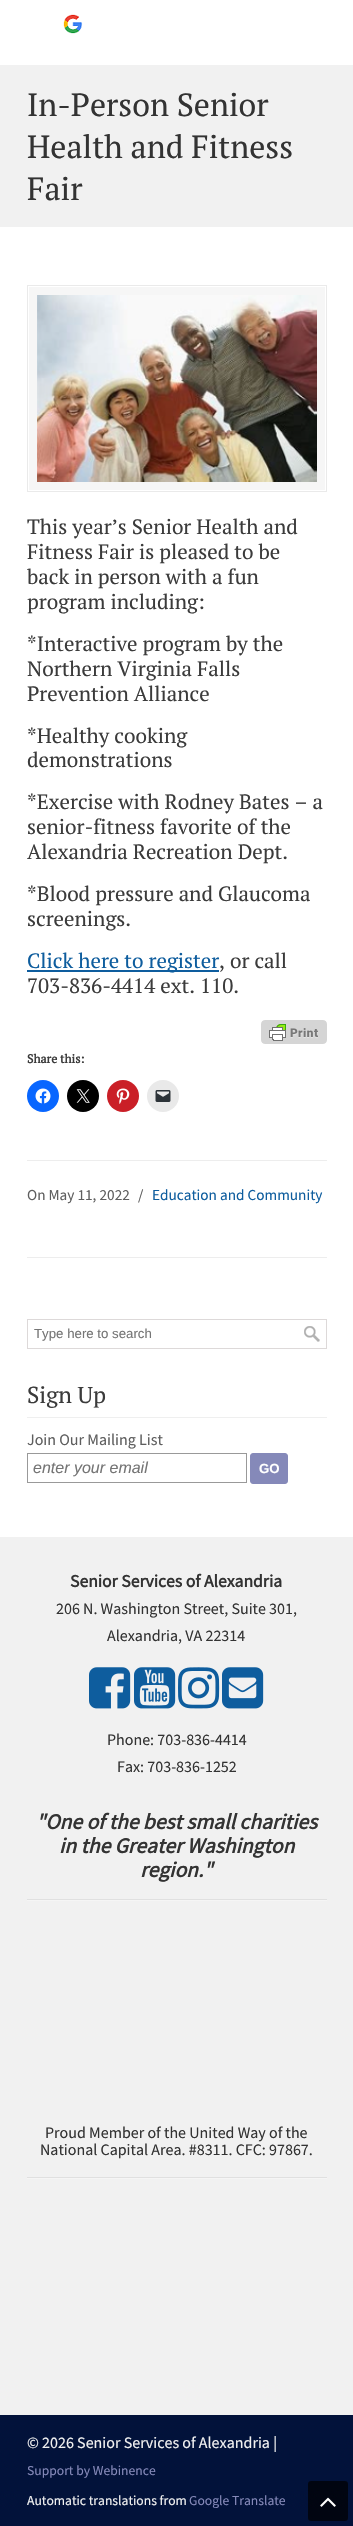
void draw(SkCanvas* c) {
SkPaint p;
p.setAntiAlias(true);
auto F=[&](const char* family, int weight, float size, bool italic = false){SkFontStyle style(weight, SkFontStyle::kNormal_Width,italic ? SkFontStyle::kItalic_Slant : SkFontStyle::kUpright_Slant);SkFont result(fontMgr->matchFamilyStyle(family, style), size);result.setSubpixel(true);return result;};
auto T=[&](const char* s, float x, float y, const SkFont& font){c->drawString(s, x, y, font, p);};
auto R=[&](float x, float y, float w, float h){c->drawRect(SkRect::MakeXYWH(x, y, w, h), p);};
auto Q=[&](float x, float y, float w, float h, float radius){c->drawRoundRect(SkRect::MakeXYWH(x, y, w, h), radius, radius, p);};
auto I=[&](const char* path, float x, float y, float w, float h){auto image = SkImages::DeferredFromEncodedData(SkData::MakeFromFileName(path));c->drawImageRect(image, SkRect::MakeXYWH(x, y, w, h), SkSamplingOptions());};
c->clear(0xff02123a);
p.setColor(0xffffffff);
R(0,0,353,65);
I("1.png",63,14,20,20);
p.setColor(0xfff1f1f1);
R(0,65,353,162);
auto f1 = F("PT Serif",400,32);
p.setColor(0xff333333);
T("In-Person Senior",27,116,f1);
T("Health and Fitness",27,158,f1);
T("Fair",27,200,f1);
p.setColor(0xffffffff);
R(0,227,353,1310);
p.setColor(0xfff6f6f6);
R(29,287,296,203);
p.setStroke(true);
p.setStrokeWidth(1);
p.setColor(0xffeaeaea);
c->drawRect(SkRect::MakeXYWH(27.5,285.5,299,206),p);
I("2.png",37,295,280,187);
auto f2 = F("PT Serif",400,20.75);
p.setStroke(false);
p.setColor(0xff3b3b3b);
T("This year’s Senior Health and",27,534,f2);
T("Fitness Fair is pleased to be",27,559,f2);
T("back in person with a fun",27,584,f2);
T("program including:",27,609,f2);
T("*Interactive program by the",27,651,f2);
T("Northern Virginia Falls",27,676,f2);
T("Prevention Alliance",27,701,f2);
T("*Healthy cooking",27,743,f2);
T("demonstrations",27,767,f2);
T("*Exercise with Rodney Bates – a",27,809,f2);
T("senior-fitness favorite of the",27,834,f2);
T("Alexandria Recreation Dept.",27,859,f2);
T("*Blood pressure and Glaucoma",27,901,f2);
T("screenings.",27,926,f2);
p.setColor(0xff0e5d9e);
R(27,970,192,2);
T("Click here to register",27,968,f2);
p.setColor(0xff3b3b3b);
T(", or call",219,968,f2);
T("703-836-4414 ext. 110.",27,993,f2);
I("3.png",261,1020,66,24);
auto f3 = F("PT Serif",700,12);
T("Share this:",27,1063,f3);
p.setColor(0xff0866ff);
c->drawCircle(43,1096,16,p);
I("4.png",35,1088,16,16);
p.setColor(0xff000000);
c->drawCircle(83,1096,16,p);
I("5.png",76,1089,14,14);
p.setColor(0xffca1f27);
c->drawCircle(123,1096,16,p);
I("6.png",116,1088,14,16);
p.setColor(0xffe9e9e9);
c->drawCircle(163,1096,16,p);
I("7.png",155,1090,16,12);
p.setColor(0xffededed);
R(27,1160,300,1);
auto f4 = F("Source Sans Pro",400,15.25);
p.setColor(0xff5e5e5e);
T("On May 11, 2022",27,1200,f4);
T("/",138,1200,f4);
p.setColor(0xff0e5d9e);
T("Education and Community",152,1200,f4);
p.setColor(0xffededed);
R(27,1257,300,1);
p.setStroke(true);
p.setColor(0xffddd9d9);
c->drawRect(SkRect::MakeXYWH(27.5,1319.5,299,29),p);
auto f5 = F("Liberation Sans",400,13.25);
p.setStroke(false);
p.setColor(0xff757575);
T("Type here to search",34,1338,f5);
I("8.png",304,1326,16,16);
p.setColor(0xffefefef);
R(27,1417,300,1);
auto f6 = F("PT Serif",400,23);
p.setColor(0xff3b3b3b);
T("Sign Up",27,1403,f6);
auto f7 = F("Source Sans Pro",400,16);
p.setColor(0xff5e5e5e);
T("Join Our Mailing List",27,1445,f7);
p.setStroke(true);
p.setColor(0xff999999);
c->drawRect(SkRect::MakeXYWH(27.5,1453.5,219,29),p);
auto f8 = F("Liberation Sans",400,16,true);
p.setStroke(false);
p.setColor(0xff757575);
T("enter your email",33,1473,f8);
p.setColor(0xff8589b9);
c->drawRoundRect(SkRect::MakeXYWH(250.5,1453.5,37,30),2.5,2.5,p);
p.setStroke(true);
c->drawRoundRect(SkRect::MakeXYWH(250.5,1453.5,37,30),2.5,2.5,p);
auto f9 = F("Liberation Sans",700,13.25);
p.setStroke(false);
p.setColor(0xffffffff);
T("GO",259,1473,f9);
p.setColor(0xfff1f1f1);
R(0,1537,353,878);
auto f10 = F("Source Sans Pro",700,17.6);
p.setColor(0xff333333);
T("Senior Services of Alexandria",70,1587,f10);
T("206 N. Washington Street, Suite 301,",56,1614,f7);
T("Alexandria, VA 22314",107,1641,f7);
I("9.png",89,1667,42,42);
I("10.png",134,1667,42,42);
I("11.png",178,1667,42,42);
I("12.png",222,1667,42,42);
T("Phone: 703-836-4414",107,1745,f7);
T("Fax: 703-836-1252",117,1772,f7);
auto f11 = F("Source Sans Pro",700,21.6,true);
T("\"One of the best small charities",36,1829,f11);
T("in the Greater Washington",59,1853,f11);
T("region.\"",140,1877,f11);
I("13.png",27,1899,300,2);
T("Proud Member of the United Way of the",45,2138,f7);
T("National Capital Area. #8311. CFC: 97867.",40,2155,f7);
I("13.png",27,2177,300,2);
p.setColor(0xfff1f1f1);
T("© 2026 Senior Services of Alexandria |",27,2448,f7);
auto f12 = F("Source Sans Pro",400,13.6);
p.setColor(0xff8589b9);
T("Support by Webinence",27,2475,f12);
p.setColor(0xfff1f1f1);
T("Automatic translations from",27,2505,f12);
p.setColor(0xff8589b9);
T("Google Translate",189,2505,f12);
p.setColor(0xff010511);
Q(308,2481,40,40,3);
I("14.png",320,2497,16,10);
}
